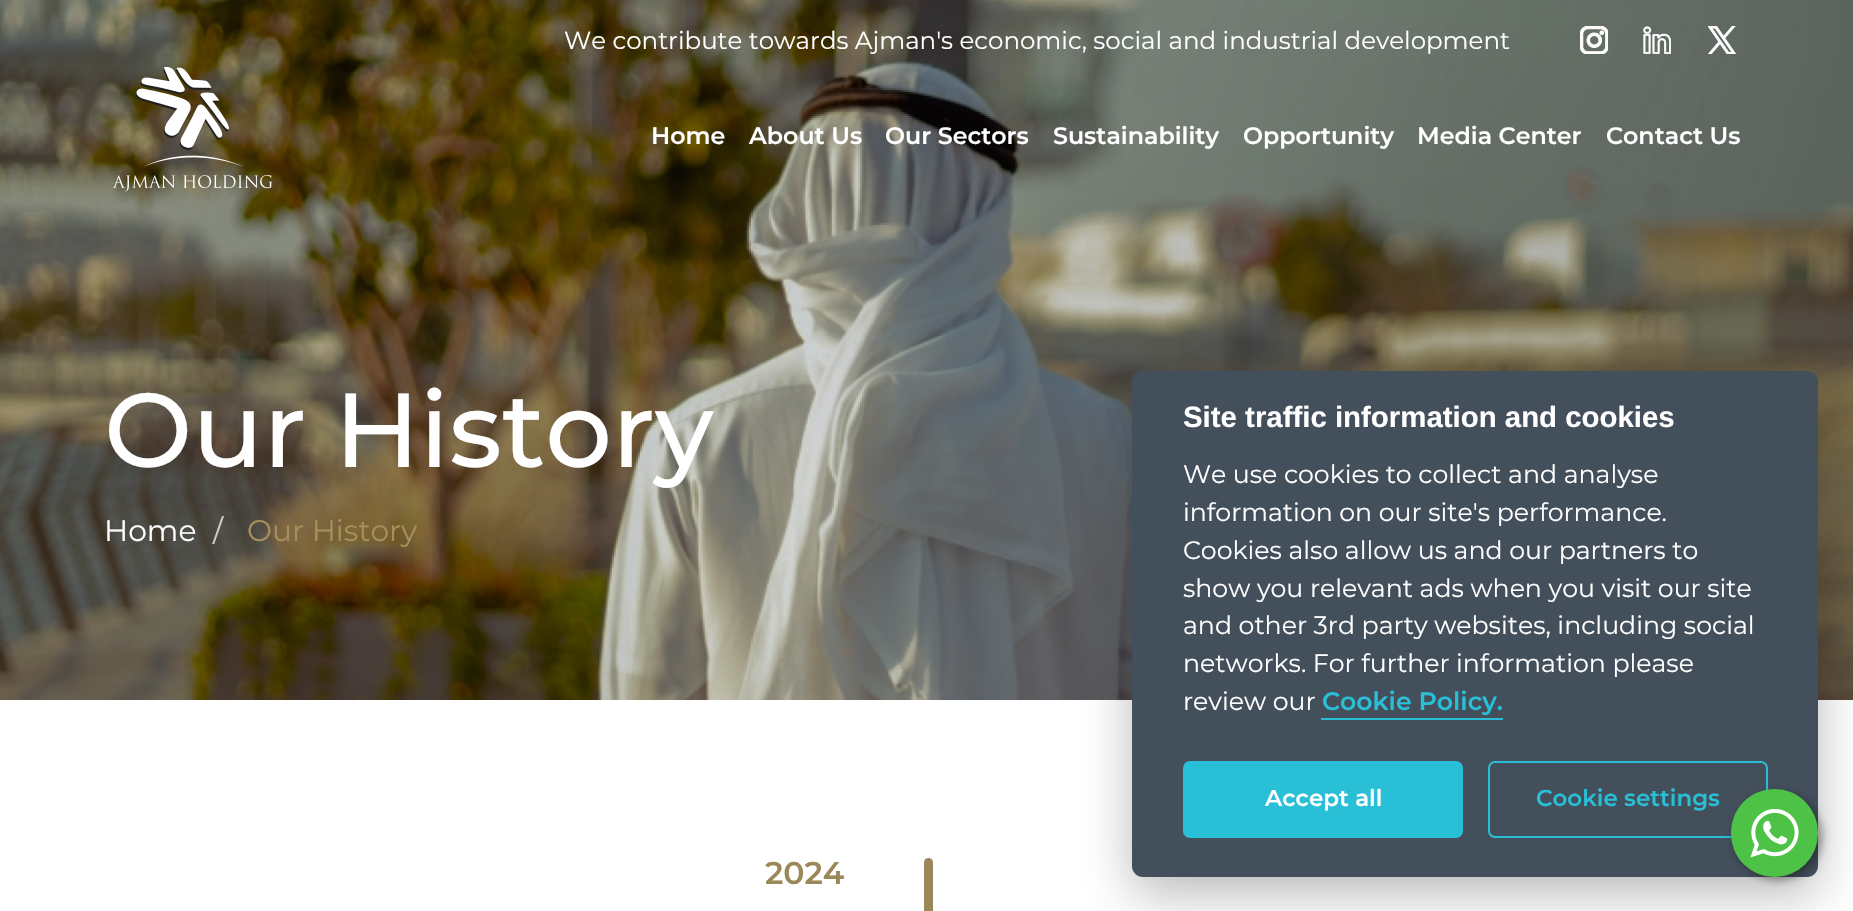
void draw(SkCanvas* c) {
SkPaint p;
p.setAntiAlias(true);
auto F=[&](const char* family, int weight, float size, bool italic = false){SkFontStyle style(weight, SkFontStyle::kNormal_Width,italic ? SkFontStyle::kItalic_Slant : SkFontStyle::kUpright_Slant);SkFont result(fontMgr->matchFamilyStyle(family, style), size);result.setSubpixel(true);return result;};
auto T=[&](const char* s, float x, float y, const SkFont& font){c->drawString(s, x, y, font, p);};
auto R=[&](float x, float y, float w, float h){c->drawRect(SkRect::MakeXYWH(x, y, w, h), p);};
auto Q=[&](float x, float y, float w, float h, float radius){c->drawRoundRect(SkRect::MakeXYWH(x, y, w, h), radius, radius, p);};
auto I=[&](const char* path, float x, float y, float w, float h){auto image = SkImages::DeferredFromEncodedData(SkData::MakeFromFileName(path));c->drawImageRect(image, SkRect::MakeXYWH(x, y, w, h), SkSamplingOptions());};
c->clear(0xffffffff);
I("5.png",0,0,1853,700);
I("1.png",112,66,161,126);
auto f1 = F("Montserrat",400,24.5);
p.setColor(0xffffffff);
T("We contribute towards Ajman's economic, social and industrial development",564,49,f1);
I("2.png",1580,26,28,28);
I("3.png",1643,26,28,28);
I("4.png",1708,26,28,28);
auto f2 = F("Montserrat",600,23.75);
T("Home",651,144,f2);
T("About Us",749,144,f2);
T("Our Sectors",885,144,f2);
T("Sustainability",1053,144,f2);
T("Opportunity",1243,144,f2);
T("Media Center",1417,144,f2);
T("Contact Us",1606,144,f2);
auto f3 = F("Montserrat",500,105);
T("Our History",104,467,f3);
auto f4 = F("Montserrat",400,29.75);
T("Home",104,541,f4);
p.setColor(0xffcccccc);
T("/",213,541,f4);
p.setColor(0xffa5905c);
T("Our History",247,541,f4);
auto f5 = F("Montserrat",600,31.5);
p.setColor(0xff9b8858);
T("2024",765,884,f5);
Q(924,858,9,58,4.5);
p.setColor(0x47020203);
p.setMaskFilter(SkMaskFilter::MakeBlur(kNormal_SkBlurStyle, 26));
c->drawRoundRect(SkRect::MakeXYWH(1132,389,686,505),11,11,p);
p.setMaskFilter(nullptr);
p.setColor(0xff444f5c);
Q(1132,371,686,506,11);
auto f6 = F("Liberation Sans",700,29.4);
p.setColor(0xffffffff);
T("Site traffic information and cookies",1183,427,f6);
auto f7 = F("Montserrat",400,25.2);
T("We use cookies to collect and analyse",1183,483,f7);
T("information on our site's performance.",1183,521,f7);
T("Cookies also allow us and our partners to",1183,559,f7);
T("show you relevant ads when you visit our site",1183,597,f7);
T("and other 3rd party websites, including social",1183,634,f7);
T("networks. For further information please",1183,672,f7);
T("review our",1183,710,f7);
auto f8 = F("Montserrat",600,25.2);
p.setColor(0xff29bfd7);
T("Cookie Policy.",1322,710,f8);
R(1321,718,182,2);
c->drawRoundRect(SkRect::MakeXYWH(1184,762,278,75),6,6,p);
p.setStroke(true);
p.setStrokeWidth(2);
c->drawRoundRect(SkRect::MakeXYWH(1184,762,278,75),6,6,p);
auto f9 = F("Montserrat",600,23);
p.setStroke(false);
p.setColor(0xffffffff);
T("Accept all",1265,806,f9);
p.setStroke(true);
p.setColor(0xff29bfd7);
c->drawRoundRect(SkRect::MakeXYWH(1489,762,278,75),6,6,p);
p.setStroke(false);
T("Cookie settings",1536,806,f9);
p.setColor(0x66000000);
p.setMaskFilter(SkMaskFilter::MakeBlur(kNormal_SkBlurStyle, 5));
c->drawRoundRect(SkRect::MakeXYWH(1734,793,88,87),43.5,43.5,p);
p.setMaskFilter(nullptr);
p.setColor(0xff4dc247);
Q(1731,789,87,88,43.5);
I("6.png",1750,808,49,50);
}
